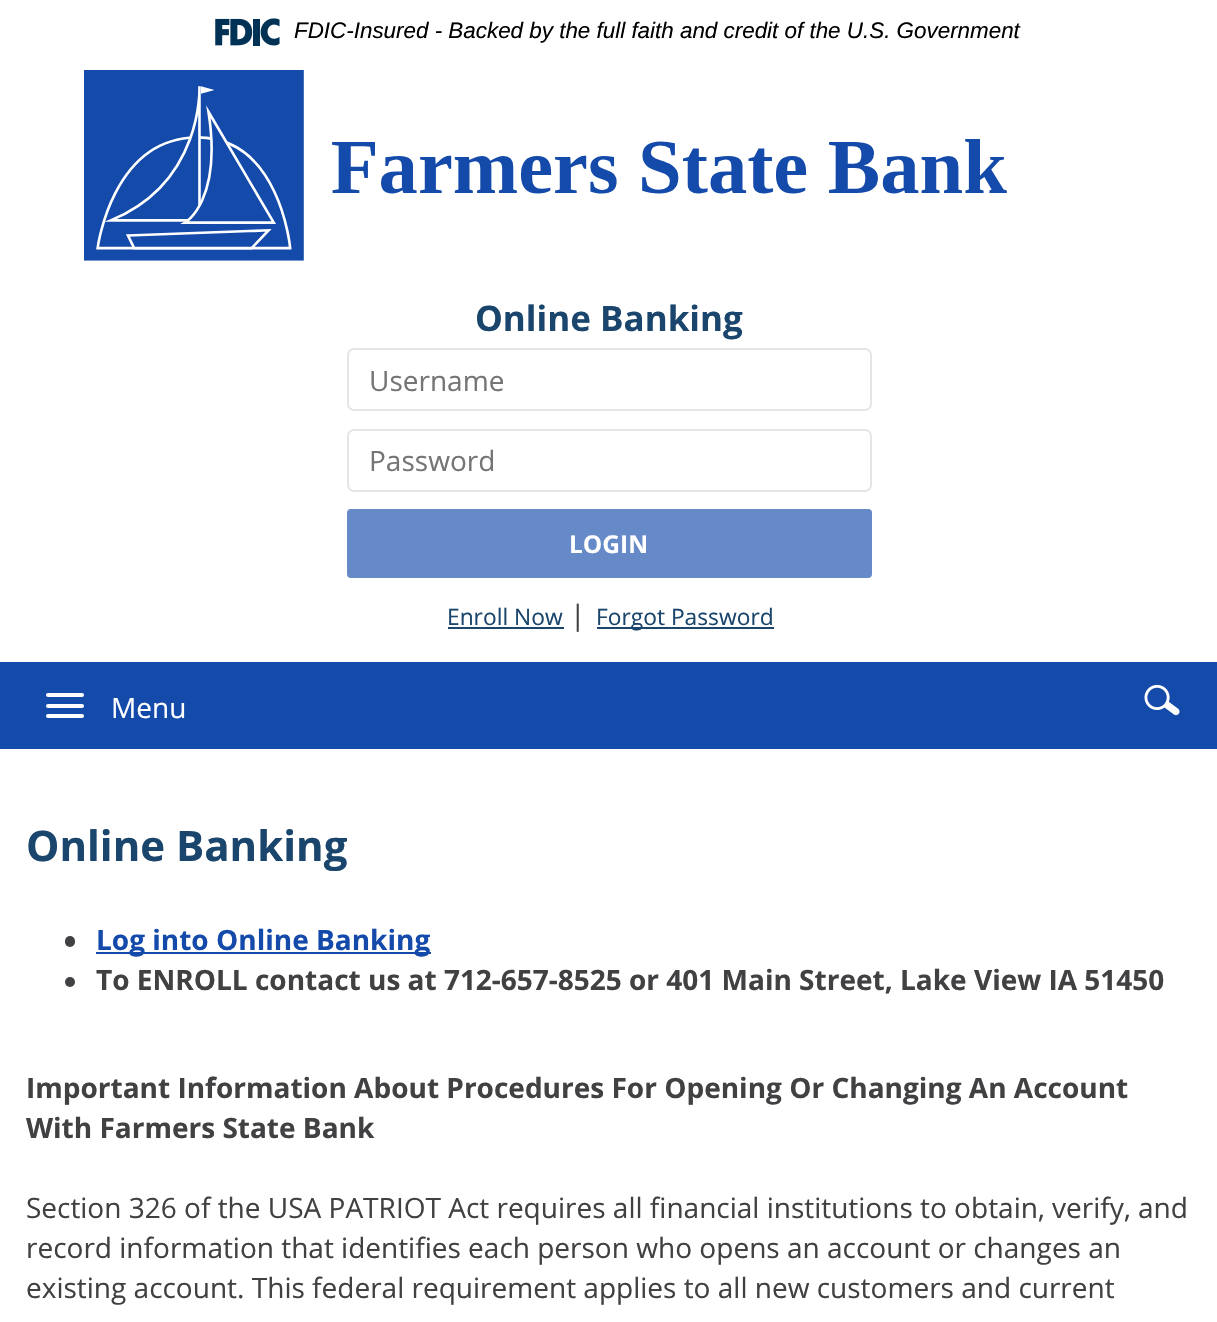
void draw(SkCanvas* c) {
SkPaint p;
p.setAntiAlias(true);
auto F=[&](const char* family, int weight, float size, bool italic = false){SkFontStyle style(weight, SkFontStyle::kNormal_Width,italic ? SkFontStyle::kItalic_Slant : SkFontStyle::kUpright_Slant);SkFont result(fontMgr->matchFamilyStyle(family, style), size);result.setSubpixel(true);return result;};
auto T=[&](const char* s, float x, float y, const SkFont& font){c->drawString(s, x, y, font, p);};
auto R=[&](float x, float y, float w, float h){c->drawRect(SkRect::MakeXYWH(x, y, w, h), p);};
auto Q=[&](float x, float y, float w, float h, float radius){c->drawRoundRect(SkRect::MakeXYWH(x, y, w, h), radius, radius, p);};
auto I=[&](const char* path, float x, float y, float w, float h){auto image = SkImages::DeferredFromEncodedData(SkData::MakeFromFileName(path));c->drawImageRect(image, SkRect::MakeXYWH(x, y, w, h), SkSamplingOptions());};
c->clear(0xffffffff);
I("1.png",215,18,65,28);
auto f1 = F("Liberation Sans",400,22.4,true);
p.setColor(0xff000000);
T("FDIC-Insured - Backed by the full faith and credit of the U.S. Government",294,38,f1);
I("2.png",84,70,923,191);
auto f2 = F("Open Sans",700,35);
p.setColor(0xff1a456c);
T("Online Banking",475,331,f2);
p.setStroke(true);
p.setStrokeWidth(2);
p.setColor(0xffe6e6e6);
c->drawRoundRect(SkRect::MakeXYWH(348,349,523,61),6,6,p);
auto f3 = F("Open Sans",400,28);
p.setStroke(false);
p.setColor(0xff757575);
T("Username",369,391,f3);
p.setStroke(true);
p.setColor(0xffe6e6e6);
c->drawRoundRect(SkRect::MakeXYWH(348,430,523,61),6,6,p);
p.setStroke(false);
p.setColor(0xff757575);
T("Password",369,471,f3);
p.setColor(0xff6689c8);
c->drawRoundRect(SkRect::MakeXYWH(348,510,523,67),3,3,p);
p.setStroke(true);
c->drawRoundRect(SkRect::MakeXYWH(348,510,523,67),3,3,p);
auto f4 = F("Open Sans",700,24.5);
p.setStroke(false);
p.setColor(0xffffffff);
T("LOGIN",569,553,f4);
auto f5 = F("Open Sans",400,22.75);
p.setColor(0xff1a456c);
T("Enroll Now",447,625,f5);
R(448,627,116,2);
p.setColor(0xff414042);
T("|",570,625,f3);
p.setColor(0xff1a456c);
R(597,627,177,2);
T("Forgot Password",596,625,f5);
p.setColor(0xff144aaa);
R(0,662,1217,87);
p.setColor(0xffffffff);
Q(46,693,38,4,2);
Q(46,704,38,4,2);
Q(46,714,38,4,2);
T("Menu",111,718,f3);
I("3.png",1144,684,36,32);
auto f6 = F("Open Sans",700,42);
p.setColor(0xff1a456c);
T("Online Banking",26,861,f6);
p.setColor(0xff414042);
Q(65,936,10,11,5);
p.setColor(0xff144aaa);
R(96,952,335,2);
auto f7 = F("Open Sans",700,28);
T("Log into Online Banking",96,950,f7);
p.setColor(0xff414042);
c->drawCircle(70,982,5,p);
T("To ENROLL contact us at 712-657-8525 or 401 Main Street, Lake View IA 51450",96,990,f7);
T("Important Information About Procedures For Opening Or Changing An Account",26,1098,f7);
T("With Farmers State Bank",26,1138,f7);
T("Section 326 of the USA PATRIOT Act requires all financial institutions to obtain, verify, and",26,1218,f3);
T("record information that identifies each person who opens an account or changes an",26,1258,f3);
T("existing account. This federal requirement applies to all new customers and current",26,1298,f3);
}
